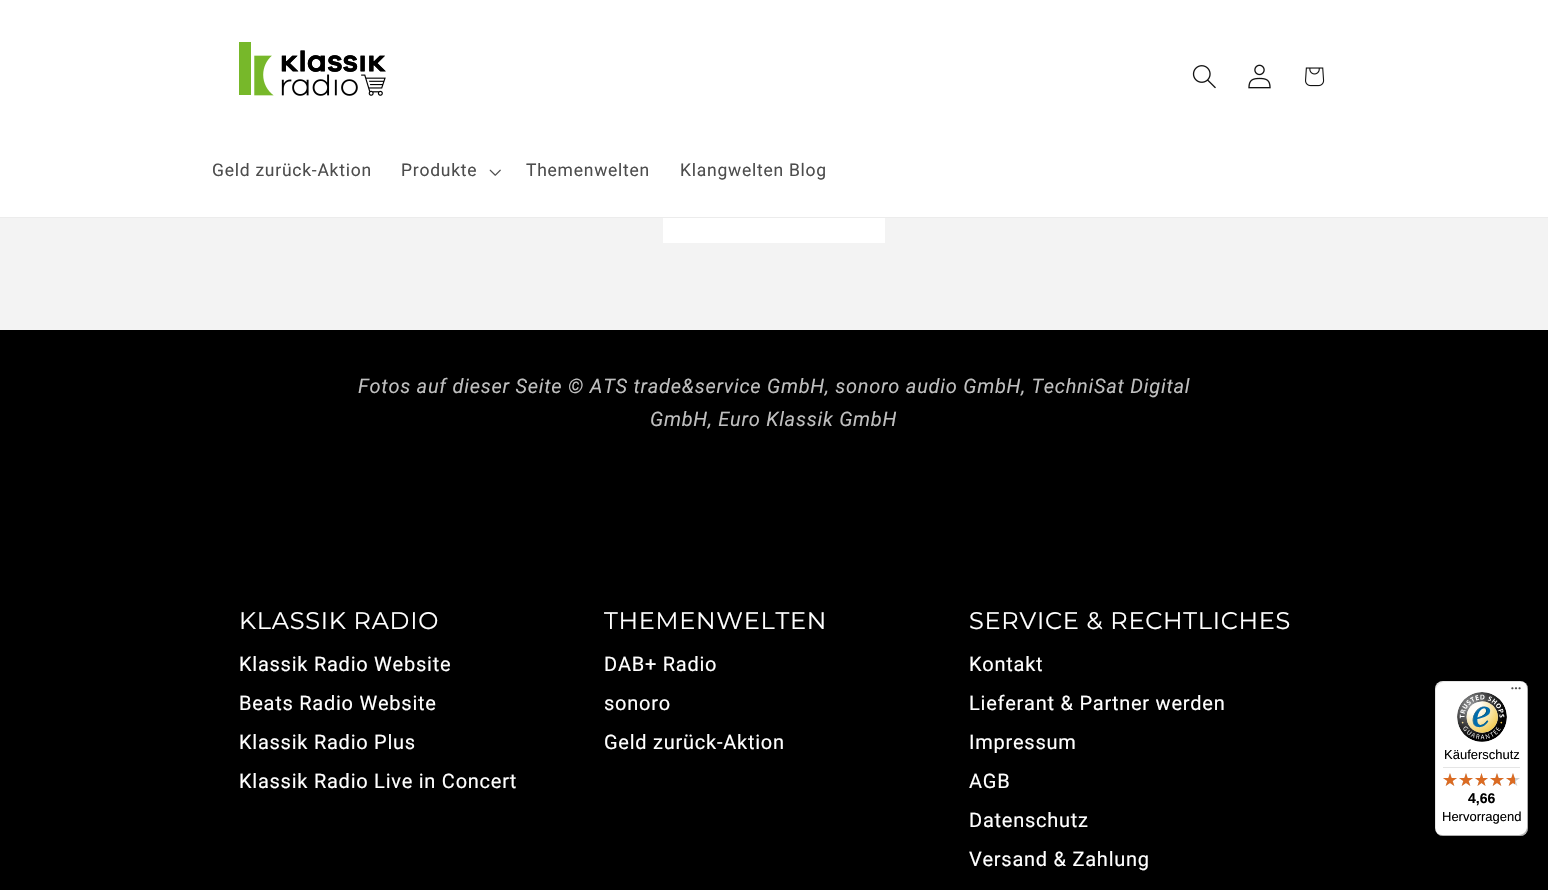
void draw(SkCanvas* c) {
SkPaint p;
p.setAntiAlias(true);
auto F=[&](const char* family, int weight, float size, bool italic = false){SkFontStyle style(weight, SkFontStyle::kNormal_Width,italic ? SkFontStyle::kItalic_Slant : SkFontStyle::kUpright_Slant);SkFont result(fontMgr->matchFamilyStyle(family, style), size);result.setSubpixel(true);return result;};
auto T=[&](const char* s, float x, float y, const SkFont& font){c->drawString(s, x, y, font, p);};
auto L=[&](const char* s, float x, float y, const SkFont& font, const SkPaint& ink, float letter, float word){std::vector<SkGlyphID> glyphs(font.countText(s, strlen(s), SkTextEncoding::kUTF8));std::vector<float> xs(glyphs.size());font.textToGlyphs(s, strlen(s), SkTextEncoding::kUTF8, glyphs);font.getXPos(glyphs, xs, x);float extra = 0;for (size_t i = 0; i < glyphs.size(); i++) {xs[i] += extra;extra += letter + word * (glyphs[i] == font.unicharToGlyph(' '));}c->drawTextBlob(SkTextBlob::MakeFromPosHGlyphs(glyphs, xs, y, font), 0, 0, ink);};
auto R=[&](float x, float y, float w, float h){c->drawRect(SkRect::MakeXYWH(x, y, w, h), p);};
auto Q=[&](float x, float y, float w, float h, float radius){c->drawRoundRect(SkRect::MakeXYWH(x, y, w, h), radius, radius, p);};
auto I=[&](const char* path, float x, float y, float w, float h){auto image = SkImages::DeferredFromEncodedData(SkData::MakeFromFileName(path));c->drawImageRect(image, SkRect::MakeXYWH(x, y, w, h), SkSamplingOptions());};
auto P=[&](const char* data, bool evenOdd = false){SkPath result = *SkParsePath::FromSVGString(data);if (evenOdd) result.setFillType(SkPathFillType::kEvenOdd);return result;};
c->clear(0xfff3f3f3);
p.setColor(0xffffffff);
R(0,0,1548,217);
p.setColor(0xffececec);
R(0,217,1548,1);
I("1.png",239,42,147,54);
I("2.png",1192,65,24,24);
I("3.png",1248,64,23,25);
I("4.png",1305,67,20,20);
auto f1 = F("Roboto",400,17.5);
p.setColor(0xff4d4d4d);
L("Geld zurück-Aktion",212,176,f1,p,.75,0);
L("Produkte",401,176,f1,p,.75,0);
I("5.png",489,169,12,7);
L("Themenwelten",526,176,f1,p,.75,0);
L("Klangwelten Blog",680,176,f1,p,.75,0);
p.setColor(0xffffffff);
R(663,218,222,25);
p.setColor(0xff000000);
R(0,330,1548,560);
auto f2 = F("Roboto",400,20,true);
p.setColor(0xffbfbfbf);
L("Fotos auf dieser Seite © ATS trade&service GmbH, sonoro audio GmbH, TechniSat Digital",358,393,f2,p,.75,0);
L("GmbH, Euro Klassik GmbH",650,426,f2,p,.75,0);
auto f3 = F("Montserrat",400,24);
p.setColor(0xffffffff);
L("KLASSIK RADIO",239,629,f3,p,.75,0);
auto f4 = F("Roboto",400,20);
L("Klassik Radio Website",239,671,f4,p,.75,0);
L("Beats Radio Website",239,710,f4,p,.75,0);
L("Klassik Radio Plus",239,749,f4,p,.75,0);
L("Klassik Radio Live in Concert",239,788,f4,p,.75,0);
L("THEMENWELTEN",604,629,f3,p,.75,0);
L("DAB+ Radio",604,671,f4,p,.75,0);
L("sonoro",604,710,f4,p,.75,0);
L("Geld zurück-Aktion",604,749,f4,p,.75,0);
L("SERVICE & RECHTLICHES",969,629,f3,p,.75,0);
L("Kontakt",969,671,f4,p,.75,0);
L("Lieferant & Partner werden",969,710,f4,p,.75,0);
L("Impressum",969,749,f4,p,.75,0);
L("AGB",969,788,f4,p,.75,0);
L("Datenschutz",969,827,f4,p,.75,0);
L("Versand & Zahlung",969,866,f4,p,.75,0);
Q(1435,681,93,155,8);
p.setColor(0x1a000000);
c->drawPath(P("M1444 682h77c2 0 4 1 6 3c-2-2-4-4-7-4h-77c-4 0-8 4-8 8v139c0 3 2 5 4 7c-2-2-3-4-3-6v-139c0-4 4-8 8-8z"),p);
p.setColor(0x33000000);
c->drawPath(P("M1436 832c2 2 4 4 7 4h77c4 0 8-4 8-8v-139c0-3-2-5-4-7c2 2 3 4 3 6v139c0 4-4 8-8 8h-77c-2 0-4-1-6-3z"),p);
p.setColor(0x33323232);
c->drawPath(P("M1437 833c1 2 4 3 6 3h77c4 0 8-4 8-8v-139c0-2-1-5-3-6c1 1 2 3 2 5v139c0 5-3 8-8 8h-77c-2 0-4-1-5-2z"),p);
I("6.png",1511,687,10,3);
p.setColor(0x4dffffff);
c->drawPath(P("M1520 836c4.5 0 8-3.5 8-8c0 4-4 8-8 8z"),p);
I("7.png",1457,692,50,50);
auto f5 = F("Liberation Sans",400,13);
p.setColor(0xff000000);
T("Käuferschutz",1444,759,f5);
p.setColor(0xffe5e5e5);
R(1443,767,77,1);
I("8.png",1443,773,14,13);
I("8.png",1459,773,14,13);
I("9.png",1475,773,13,13);
I("8.png",1490,773,14,13);
I("8.png",1506,773,14,13);
I("10.png",1443,773,14,13);
I("10.png",1459,773,14,13);
I("11.png",1475,773,13,13);
I("10.png",1490,773,14,13);
I("12.png",1506,773,9,13);
auto f6 = F("Liberation Sans",700,14);
p.setColor(0xff000000);
T("4,66",1468,803,f6);
T("Hervorragend",1442,821,f5);
}
